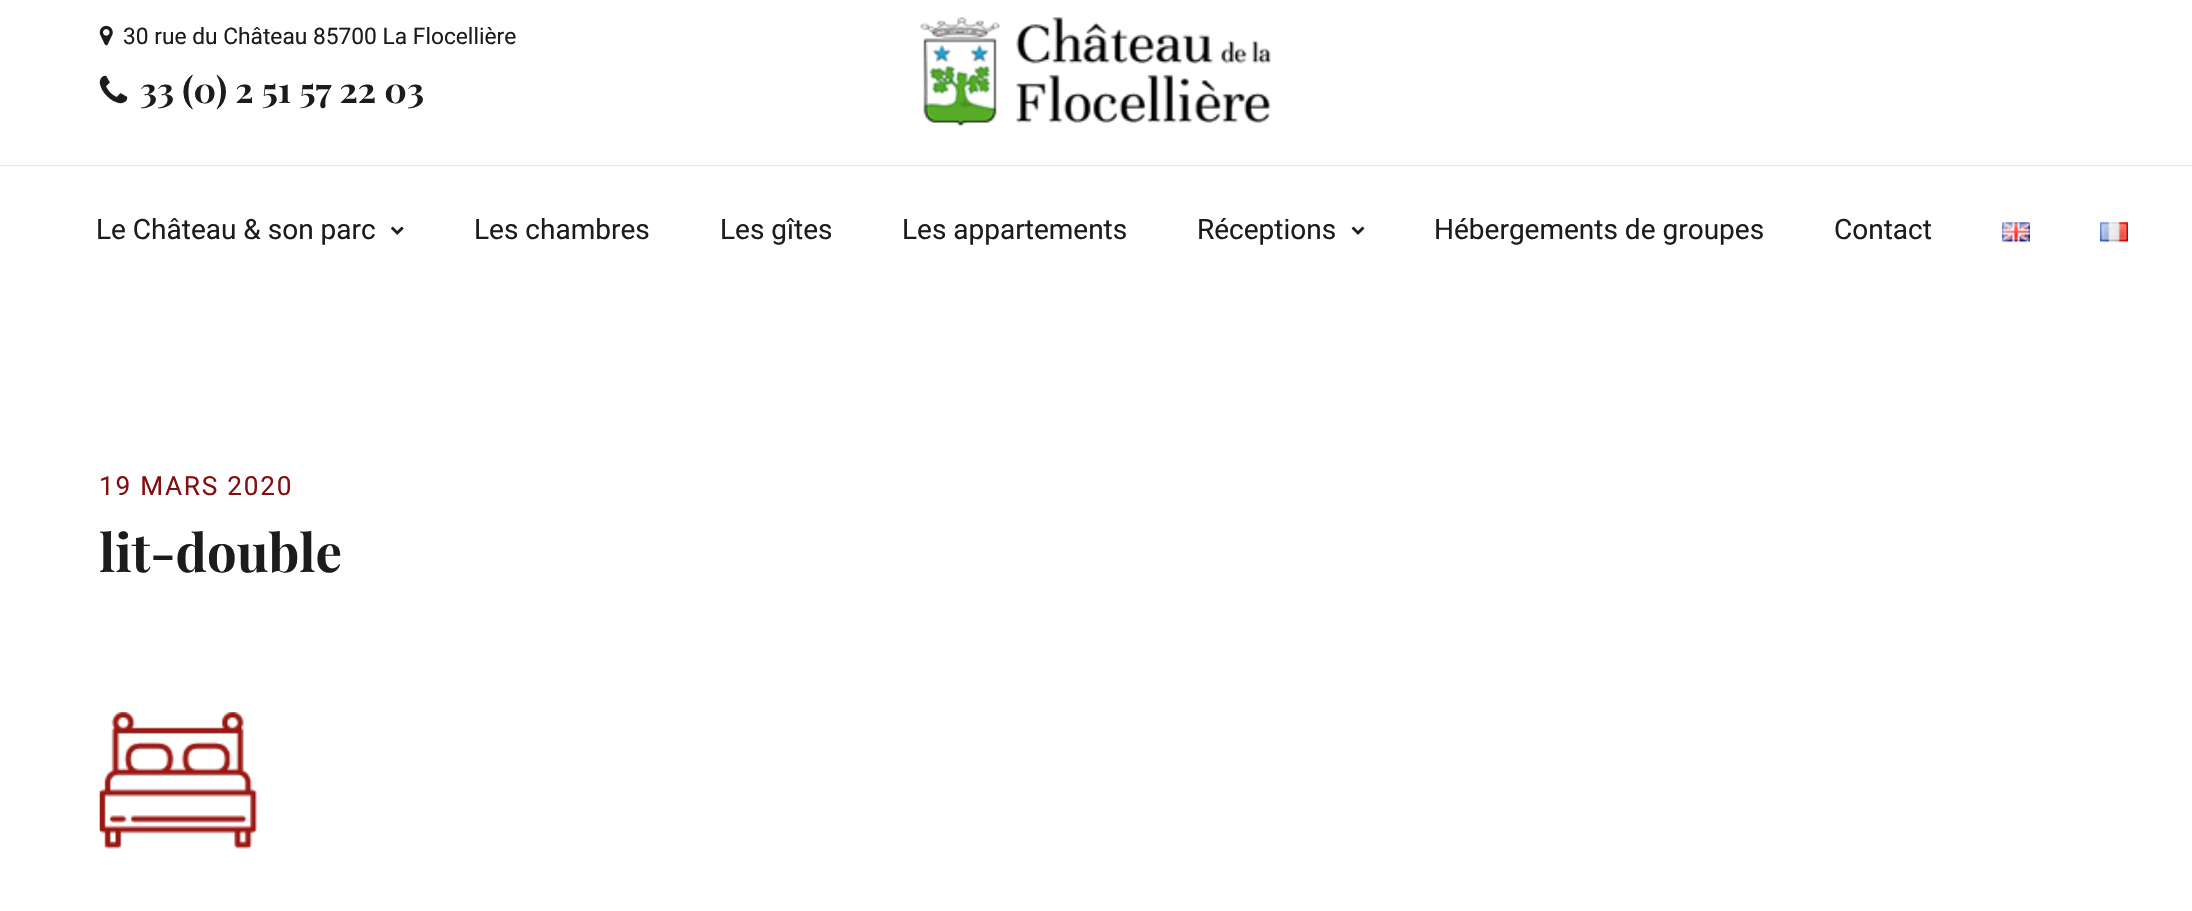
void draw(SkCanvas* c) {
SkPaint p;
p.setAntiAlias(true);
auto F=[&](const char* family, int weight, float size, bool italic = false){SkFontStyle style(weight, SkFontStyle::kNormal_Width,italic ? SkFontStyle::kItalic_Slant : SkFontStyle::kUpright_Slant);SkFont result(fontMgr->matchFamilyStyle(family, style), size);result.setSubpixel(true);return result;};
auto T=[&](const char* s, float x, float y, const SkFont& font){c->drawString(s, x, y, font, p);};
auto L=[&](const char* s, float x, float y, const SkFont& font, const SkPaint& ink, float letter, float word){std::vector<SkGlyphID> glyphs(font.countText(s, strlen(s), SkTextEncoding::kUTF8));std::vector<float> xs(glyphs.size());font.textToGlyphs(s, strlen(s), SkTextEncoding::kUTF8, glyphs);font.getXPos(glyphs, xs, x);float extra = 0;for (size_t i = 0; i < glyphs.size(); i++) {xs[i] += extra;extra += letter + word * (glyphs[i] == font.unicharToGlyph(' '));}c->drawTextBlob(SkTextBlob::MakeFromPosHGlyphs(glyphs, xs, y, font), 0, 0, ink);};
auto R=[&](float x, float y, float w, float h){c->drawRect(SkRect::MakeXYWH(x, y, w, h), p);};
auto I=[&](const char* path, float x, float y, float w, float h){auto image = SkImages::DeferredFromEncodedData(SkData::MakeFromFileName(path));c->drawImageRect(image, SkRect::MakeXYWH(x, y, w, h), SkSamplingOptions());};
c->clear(0xffffffff);
p.setColor(0xffe8e8e8);
R(0,165,2192,1);
I("1.png",99,25,14,21);
auto f1 = F("Roboto",400,22.75);
p.setColor(0xff1c1c1c);
T("30 rue du Château 85700 La Flocellière",123,44,f1);
I("2.png",99,75,29,29);
auto f2 = F("Playfair Display",700,35);
T("33 (0) 2 51 57 22 03",140,103,f2);
I("3.png",920,17,351,109);
auto f3 = F("Roboto",400,28);
T("Le Château & son parc",96,239,f3);
I("4.png",391,226,13,9);
T("Les chambres",474,239,f3);
T("Les gîtes",720,239,f3);
T("Les appartements",902,239,f3);
T("Réceptions",1197,239,f3);
I("5.png",1351,226,14,9);
T("Hébergements de groupes",1434,239,f3);
T("Contact",1834,239,f3);
I("6.png",2002,222,28,21);
I("7.png",2100,222,28,21);
auto f4 = F("Roboto",400,26.25);
p.setColor(0xff830f13);
L("19 MARS 2020",99,495,f4,p,1.75,0);
auto f5 = F("Playfair Display",700,52.5);
p.setColor(0xff1c1c1c);
T("lit-double",99,572,f5);
I("8.png",99,712,159,137);
}
